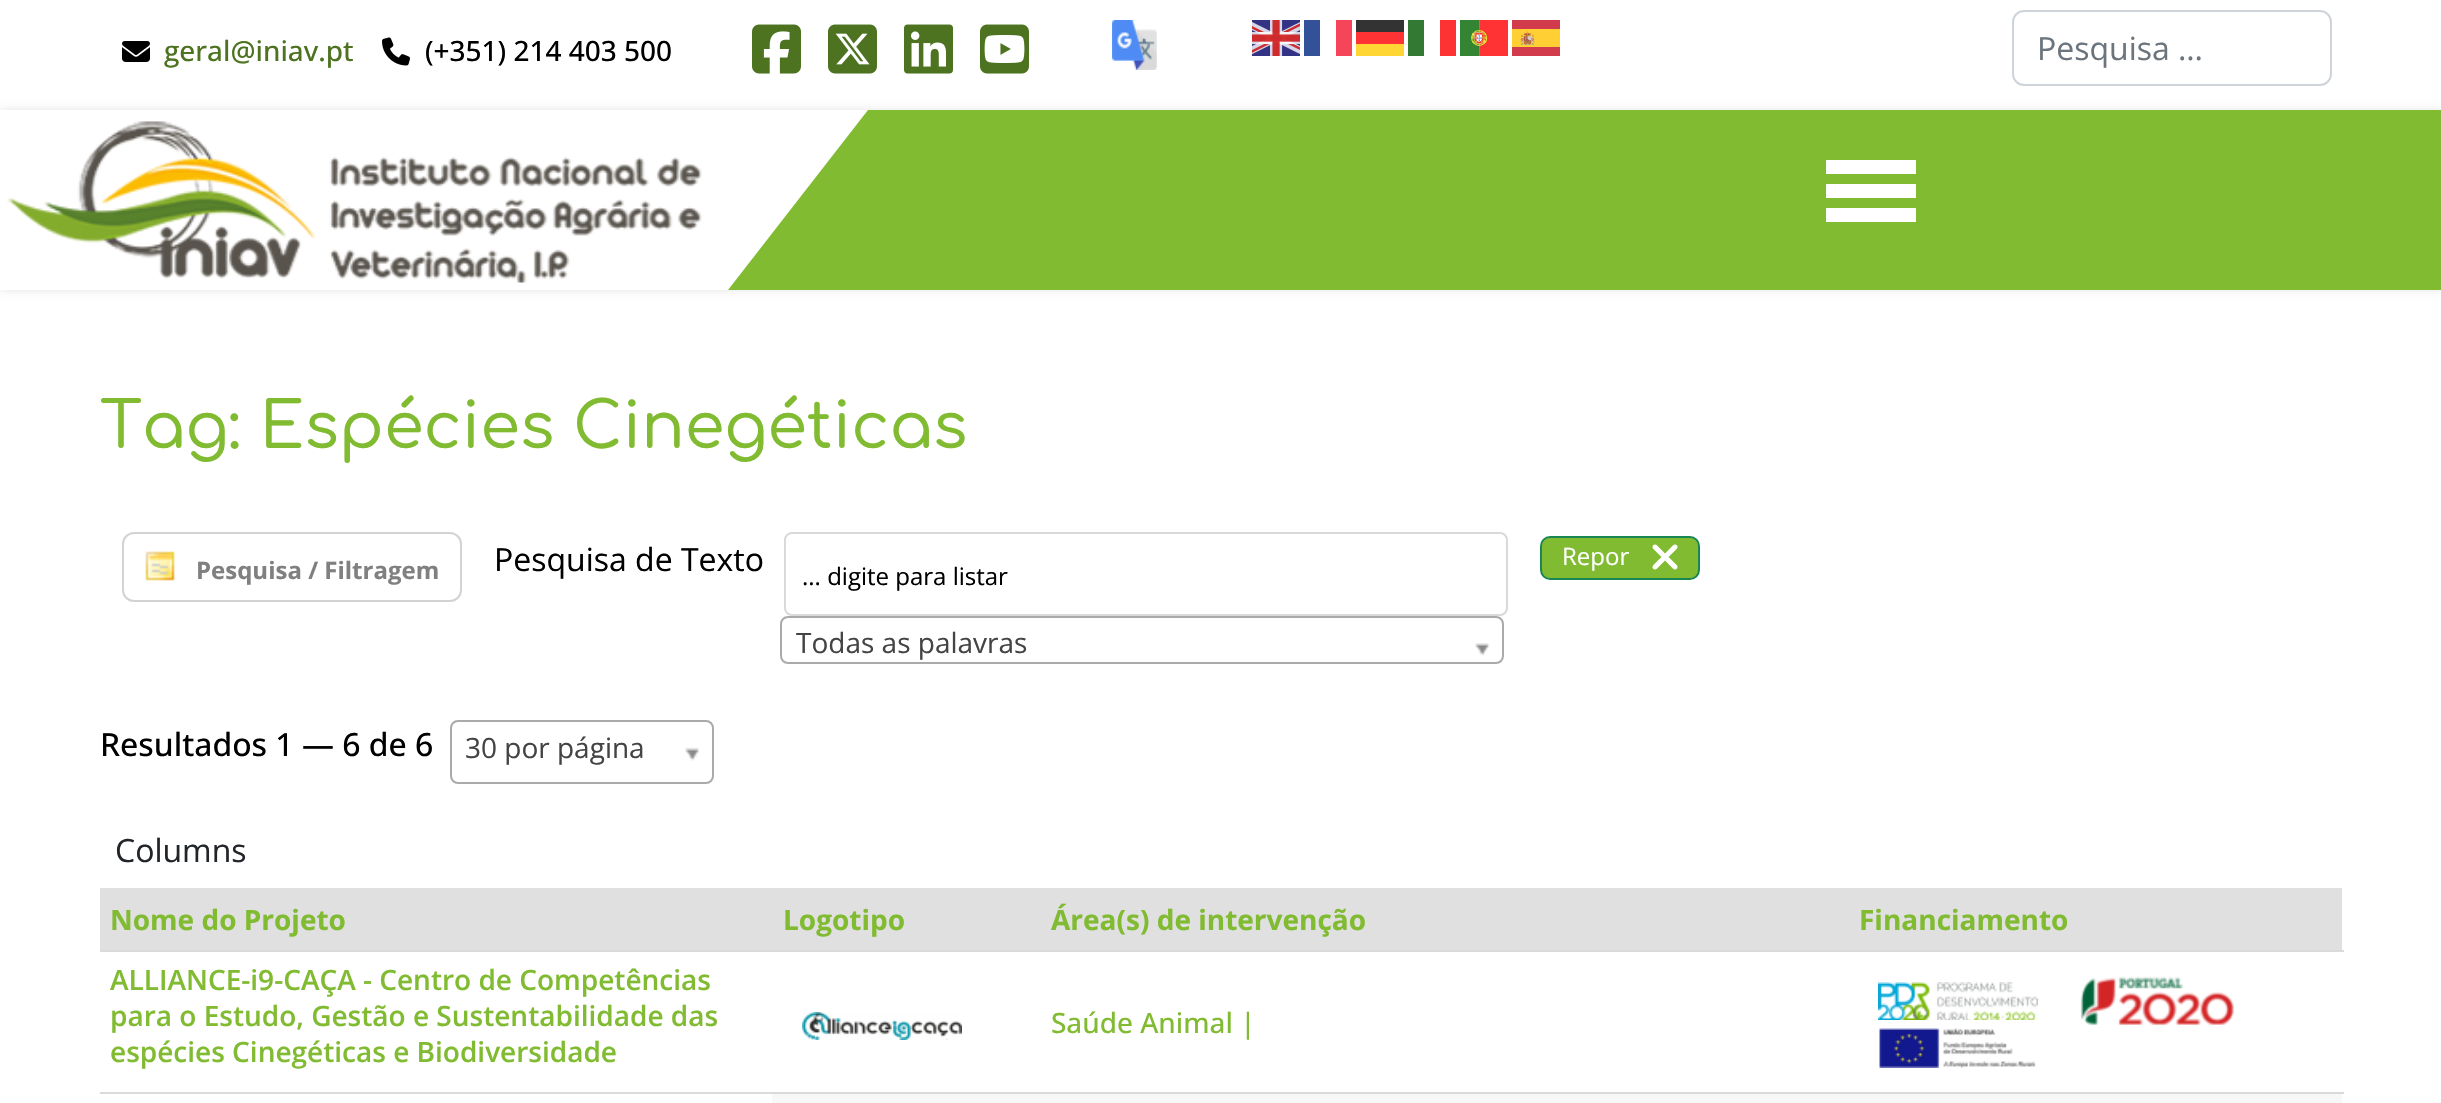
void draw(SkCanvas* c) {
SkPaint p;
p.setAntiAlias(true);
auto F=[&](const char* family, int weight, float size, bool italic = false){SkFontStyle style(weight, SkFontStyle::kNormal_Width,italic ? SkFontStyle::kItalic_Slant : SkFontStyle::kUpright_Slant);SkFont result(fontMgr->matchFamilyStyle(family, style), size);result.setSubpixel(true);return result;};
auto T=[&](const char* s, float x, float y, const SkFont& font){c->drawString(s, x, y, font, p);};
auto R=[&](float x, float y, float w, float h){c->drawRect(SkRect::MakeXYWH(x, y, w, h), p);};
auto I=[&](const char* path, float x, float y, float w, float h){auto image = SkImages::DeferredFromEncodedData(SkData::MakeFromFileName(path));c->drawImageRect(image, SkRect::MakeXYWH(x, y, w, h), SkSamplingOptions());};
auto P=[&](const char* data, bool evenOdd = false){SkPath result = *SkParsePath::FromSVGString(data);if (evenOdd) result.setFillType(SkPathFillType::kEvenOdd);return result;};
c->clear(0xffffffff);
I("1.png",122,41,28,21);
auto f1 = F("Open Sans",500,28);
p.setColor(0xff4d7321);
T("geral@iniav.pt",164,61,f1);
I("2.png",382,37,28,29);
p.setColor(0xff000000);
T("(+351) 214 403 500",425,61,f1);
I("3.png",752,24,49,50);
I("4.png",828,24,49,50);
I("5.png",904,24,49,50);
I("6.png",980,24,49,50);
I("7.png",1112,20,45,50);
I("8.png",1252,20,48,36);
p.setColor(0xff335199);
R(1304,20,16,36);
p.setColor(0xfff54659);
R(1336,20,16,36);
p.setColor(0xff333333);
R(1356,20,48,12);
p.setColor(0xff337933);
R(1408,20,16,36);
p.setColor(0xfffd3333);
R(1440,20,16,36);
I("9.png",1460,20,48,36);
I("10.png",1512,20,48,36);
p.setColor(0xffff3333);
R(1356,32,48,12);
p.setColor(0xffffd633);
R(1356,44,48,12);
p.setStroke(true);
p.setStrokeWidth(2);
p.setColor(0xffced4da);
c->drawRoundRect(SkRect::MakeXYWH(2013,11,318,74),11,11,p);
auto f2 = F("Open Sans",400,32);
p.setStroke(false);
p.setColor(0xff6c757d);
T("Pesquisa …",2037,60,f2);
p.setColor(0x1a000000);
p.setMaskFilter(SkMaskFilter::MakeBlur(kNormal_SkBlurStyle, 4));
c->drawRect(SkRect::MakeXYWH(0,110,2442,180),p);
p.setMaskFilter(nullptr);
p.setColor(0xff81bb31);
R(728,110,1713,180);
p.setColor(0xffffffff);
R(0,110,728,180);
c->drawPath(P("M728 110h140l-140 180z"),p);
I("11.png",7,121,695,162);
R(1826,160,90,14);
R(1826,184,90,14);
R(1826,208,90,14);
auto f3 = F("Comfortaa",500,64);
p.setColor(0xff81bb31);
T("Tag: Espécies Cinegéticas",100,448,f3);
I("12.png",145,551,30,30);
p.setStroke(true);
p.setColor(0xffd3d3d3);
c->drawRoundRect(SkRect::MakeXYWH(123,533,338,68),11,11,p);
auto f4 = F("Open Sans",700,24);
p.setStroke(false);
p.setColor(0xff808080);
T("Pesquisa / Filtragem",196,579,f4);
p.setColor(0xff000000);
T("Pesquisa de Texto",494,571,f2);
p.setStroke(true);
p.setColor(0xffd9d9d9);
c->drawRoundRect(SkRect::MakeXYWH(785,533,722,82),7,7,p);
auto f5 = F("Open Sans",400,24);
p.setStroke(false);
p.setColor(0xff000000);
T("... digite para listar",802,585,f5);
p.setStroke(true);
p.setColor(0xffaaaaaa);
c->drawRoundRect(SkRect::MakeXYWH(781,617,722,46),7,7,p);
auto f6 = F("Open Sans",400,28);
p.setStroke(false);
p.setColor(0xff444444);
T("Todas as palavras",796,653,f6);
I("13.png",1475,643,15,13);
p.setColor(0xff81bb31);
c->drawRoundRect(SkRect::MakeXYWH(1541,537,158,42),9,9,p);
p.setStroke(true);
p.setColor(0xff198754);
c->drawRoundRect(SkRect::MakeXYWH(1541,537,158,42),9,9,p);
p.setStroke(false);
p.setColor(0xffffffff);
T("Repor",1562,565,f5);
I("14.png",1652,544,26,26);
auto f7 = F("Open Sans",500,32);
p.setColor(0xff000000);
T("Resultados 1 — 6 de 6",100,756,f7);
p.setStroke(true);
p.setColor(0xffaaaaaa);
c->drawRoundRect(SkRect::MakeXYWH(451,721,262,62),7,7,p);
p.setStroke(false);
p.setColor(0xff444444);
T("30 por página",465,758,f6);
I("15.png",685,747,15,14);
p.setColor(0xff212529);
T("Columns",115,862,f2);
p.setColor(0xffe0e0e0);
R(100,888,2242,62);
auto f8 = F("Open Sans",700,28);
p.setColor(0xff81bb31);
T("Nome do Projeto",110,930,f8);
T("Logotipo",783,930,f8);
T("Área(s) de intervenção",1051,930,f8);
T("Financiamento",1859,930,f8);
p.setColor(0xffdadada);
R(100,950,2244,2);
auto f9 = F("Open Sans",600,28);
p.setColor(0xff81bb31);
T("ALLIANCE-i9-CAÇA - Centro de Competências",110,990,f9);
T("para o Estudo, Gestão e Sustentabilidade das",110,1026,f9);
T("espécies Cinegéticas e Biodiversidade",110,1062,f9);
I("16.png",802,1012,160,28);
T("Saúde Animal |",1051,1033,f1);
I("17.png",1878,982,160,38);
I("18.png",2080,976,154,49);
I("19.png",1879,1028,157,40);
p.setColor(0xffdadada);
R(100,1092,2244,2);
p.setColor(0xfff7f7f7);
R(772,1094,1570,9);
}
